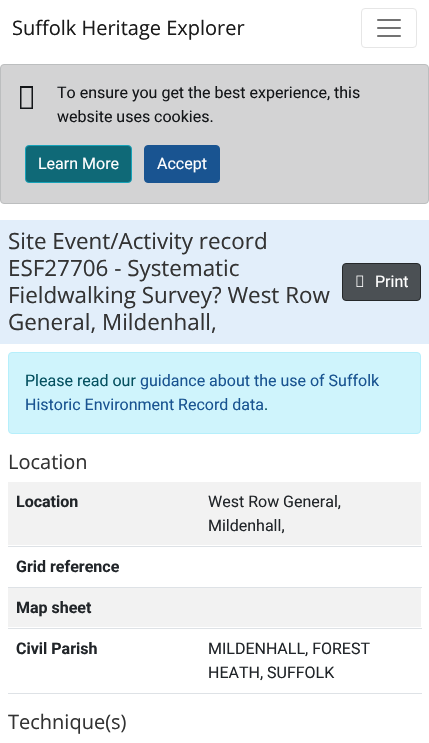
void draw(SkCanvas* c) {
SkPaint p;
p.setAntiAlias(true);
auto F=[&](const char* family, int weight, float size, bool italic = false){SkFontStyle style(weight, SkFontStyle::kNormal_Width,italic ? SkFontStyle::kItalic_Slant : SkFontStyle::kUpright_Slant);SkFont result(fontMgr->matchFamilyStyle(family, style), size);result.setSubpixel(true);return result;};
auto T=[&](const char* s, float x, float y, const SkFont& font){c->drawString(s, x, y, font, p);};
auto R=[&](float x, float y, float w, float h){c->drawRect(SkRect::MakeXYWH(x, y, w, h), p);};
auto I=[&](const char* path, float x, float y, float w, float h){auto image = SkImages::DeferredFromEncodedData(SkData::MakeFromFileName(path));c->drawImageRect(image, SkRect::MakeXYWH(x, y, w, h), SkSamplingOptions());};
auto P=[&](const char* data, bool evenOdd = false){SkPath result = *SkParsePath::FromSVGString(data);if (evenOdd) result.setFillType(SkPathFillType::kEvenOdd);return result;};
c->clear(0xffffffff);
auto f1 = F("Open Sans",400,20);
p.setColor(0xff1a1a1a);
T("Suffolk Heritage Explorer",12,35,f1);
p.setStroke(true);
p.setStrokeWidth(1);
p.setColor(0xffe6e6e6);
c->drawRoundRect(SkRect::MakeXYWH(361.5,8.5,55,39),3.5,3.5,p);
I("1.png",377,19,24,18);
p.setStroke(false);
p.setColor(0xffd3d3d4);
c->drawRoundRect(SkRect::MakeXYWH(.5,64.5,428,139),3.5,3.5,p);
p.setStroke(true);
p.setColor(0xffbcbebf);
c->drawRoundRect(SkRect::MakeXYWH(.5,64.5,428,139),3.5,3.5,p);
p.setStroke(false);
p.setColor(0xff141619);
c->drawPath(P("M20 109v-23h13v23zm1.5-1.5h10v-19.5h-10z"),p);
auto f2 = F("Roboto",400,16);
T("To ensure you get the best experience, this",57,98,f2);
T("website uses cookies.",57,122,f2);
p.setColor(0xff0f6977);
c->drawRoundRect(SkRect::MakeXYWH(25.5,145.5,106,37),3.5,3.5,p);
p.setStroke(true);
p.setColor(0xff17a2b8);
c->drawRoundRect(SkRect::MakeXYWH(25.5,145.5,106,37),3.5,3.5,p);
p.setStroke(false);
p.setColor(0xffffffff);
T("Learn More",38,169,f2);
p.setColor(0xff195491);
c->drawRoundRect(SkRect::MakeXYWH(144.5,145.5,75,37),3.5,3.5,p);
p.setStroke(true);
c->drawRoundRect(SkRect::MakeXYWH(144.5,145.5,75,37),3.5,3.5,p);
p.setStroke(false);
p.setColor(0xffffffff);
T("Accept",157,169,f2);
p.setColor(0xffe2eefa);
R(0,220,429,124);
auto f3 = F("Open Sans",400,22.4);
p.setColor(0xff333333);
T("Site Event/Activity record",8,249,f3);
T("ESF27706 - Systematic",8,276,f3);
T("Fieldwalking Survey? West Row",8,303,f3);
T("General, Mildenhall,",8,330,f3);
p.setColor(0xff4b5054);
c->drawRoundRect(SkRect::MakeXYWH(342.5,263.5,78,37),3.5,3.5,p);
p.setStroke(true);
p.setColor(0xff25282a);
c->drawRoundRect(SkRect::MakeXYWH(342.5,263.5,78,37),3.5,3.5,p);
I("2.png",356,275,8,12);
p.setStroke(false);
p.setColor(0xffffffff);
T("Print",375,287,f2);
p.setColor(0xffcff4fc);
c->drawRoundRect(SkRect::MakeXYWH(8.5,352.5,412,81),3.5,3.5,p);
p.setStroke(true);
p.setColor(0xffb6effb);
c->drawRoundRect(SkRect::MakeXYWH(8.5,352.5,412,81),3.5,3.5,p);
p.setStroke(false);
p.setColor(0xff055160);
T("Please read our",25,386,f2);
p.setColor(0xff195491);
T("guidance about the use of Suffolk",140,386,f2);
T("Historic Environment Record data",25,410,f2);
p.setColor(0xff055160);
T(".",264,410,f2);
p.setColor(0xff333333);
T("Location",8,469,f1);
p.setColor(0xfff2f2f2);
R(8,482,413,63);
auto f4 = F("Roboto",700,16);
p.setColor(0xff212529);
T("Location",16,507,f4);
p.setColor(0xffdee2e6);
R(8,546,414,1);
p.setColor(0xff212529);
T("West Row General,",208,507,f2);
T("Mildenhall,",208,531,f2);
T("Grid reference",16,572,f4);
p.setColor(0xffdee2e6);
R(8,587,414,1);
p.setColor(0xfff2f2f2);
R(8,588,413,39);
p.setColor(0xff212529);
T("Map sheet",16,613,f4);
p.setColor(0xffdee2e6);
R(8,628,414,1);
p.setColor(0xff212529);
T("Civil Parish",16,654,f4);
p.setColor(0xffdee2e6);
R(8,693,414,1);
p.setColor(0xff212529);
T("MILDENHALL, FOREST",208,654,f2);
T("HEATH, SUFFOLK",208,678,f2);
p.setColor(0xff333333);
T("Technique(s)",8,729,f1);
}
